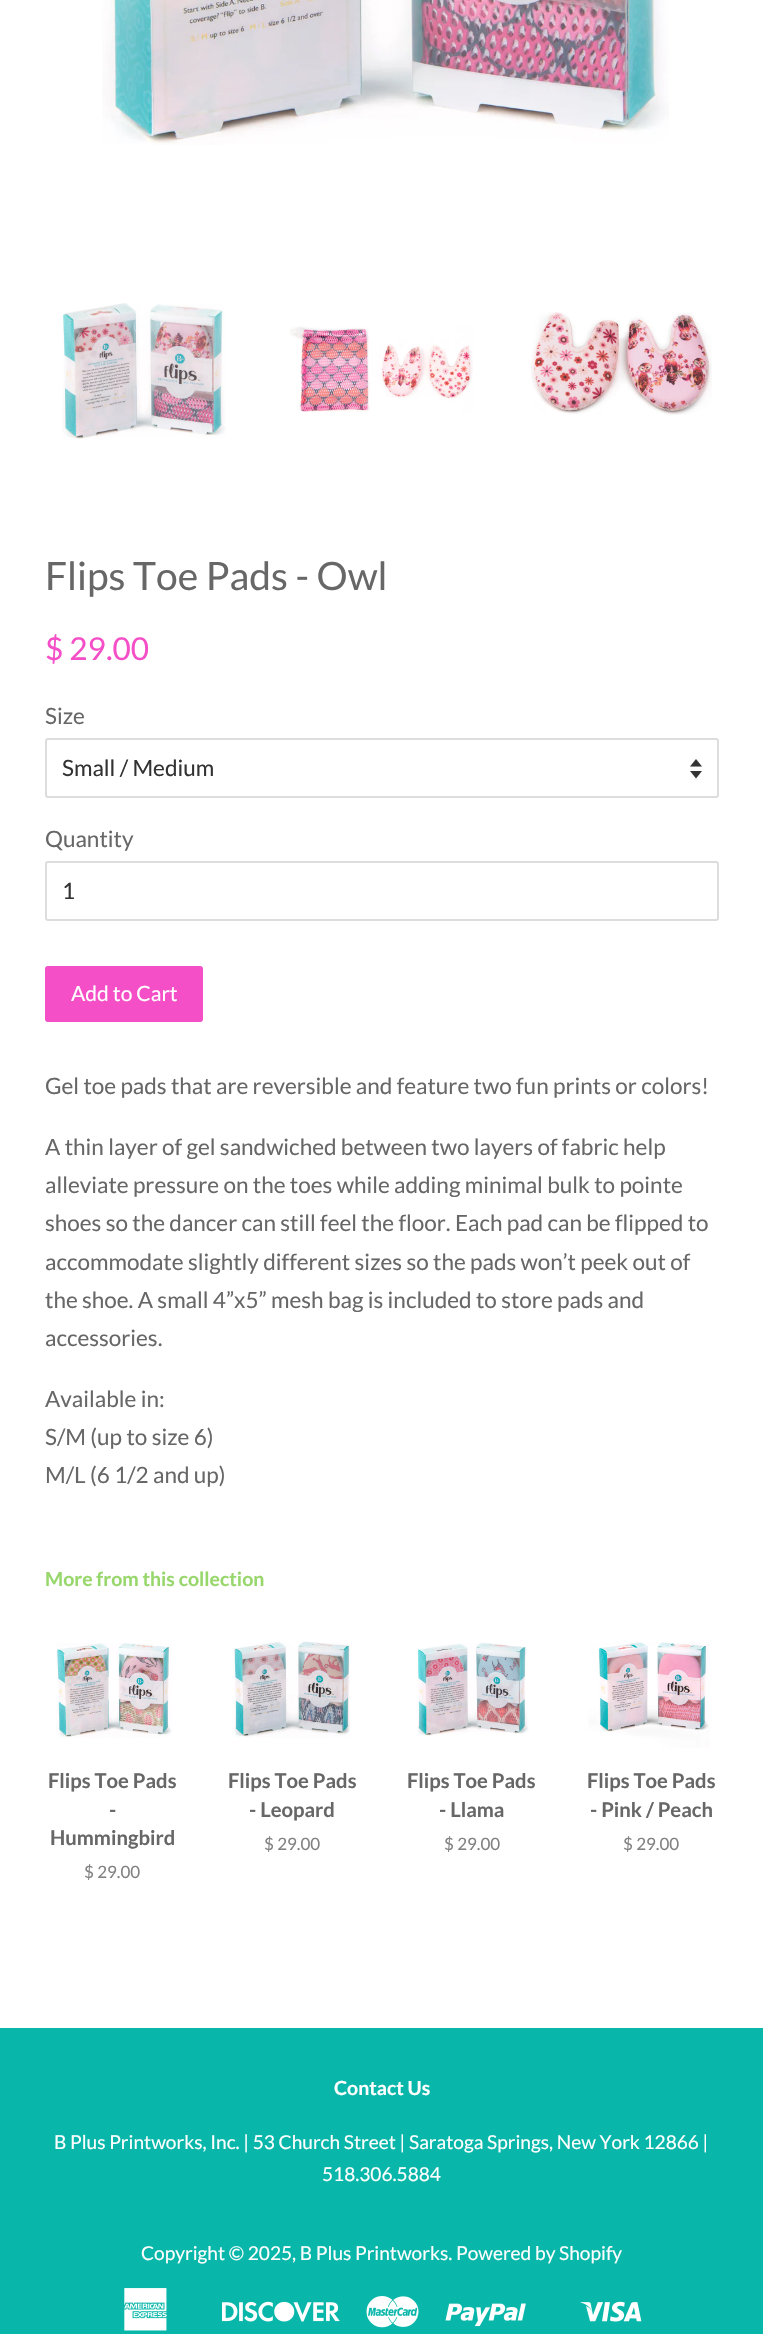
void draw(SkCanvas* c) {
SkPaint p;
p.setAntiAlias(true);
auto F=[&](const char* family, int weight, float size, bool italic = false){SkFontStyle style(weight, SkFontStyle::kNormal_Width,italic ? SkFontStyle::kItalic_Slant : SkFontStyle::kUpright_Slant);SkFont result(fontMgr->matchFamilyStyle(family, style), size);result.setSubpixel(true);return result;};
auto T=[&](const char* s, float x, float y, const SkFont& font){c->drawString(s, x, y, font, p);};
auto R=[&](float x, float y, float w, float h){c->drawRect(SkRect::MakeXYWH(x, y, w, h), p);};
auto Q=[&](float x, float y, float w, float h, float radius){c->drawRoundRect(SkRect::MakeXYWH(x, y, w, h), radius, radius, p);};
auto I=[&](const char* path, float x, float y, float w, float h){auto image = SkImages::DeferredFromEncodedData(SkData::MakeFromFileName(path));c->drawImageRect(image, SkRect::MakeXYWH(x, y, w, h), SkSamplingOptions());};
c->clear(0xffffffff);
I("1.png",102,0,567,145);
I("2.png",62,303,164,136);
I("3.png",290,326,183,86);
I("4.png",531,312,181,103);
auto f1 = F("Lato",400,39);
p.setColor(0xff676767);
T("Flips Toe Pads - Owl",45,590,f1);
auto f2 = F("Lato",400,31.5);
p.setColor(0xfff44fc7);
T("$ 29.00",45,660,f2);
auto f3 = F("Lato",400,22.5);
p.setColor(0xff676767);
T("Size",45,724,f3);
I("5.png",690,759,12,20);
p.setStroke(true);
p.setStrokeWidth(2);
p.setColor(0xffdddddd);
c->drawRoundRect(SkRect::MakeXYWH(46,739,672,58),2,2,p);
p.setStroke(false);
p.setColor(0xff333333);
T("Small / Medium",62,776,f3);
p.setColor(0xff676767);
T("Quantity",45,847,f3);
p.setStroke(true);
p.setColor(0xffdddddd);
c->drawRoundRect(SkRect::MakeXYWH(46,862,672,58),2,2,p);
p.setStroke(false);
p.setColor(0xff333333);
T("1",62,899,f3);
p.setColor(0xfff44fc7);
Q(45,966,158,56,3);
auto f4 = F("Lato",400,21);
p.setColor(0xffffffff);
T("Add to Cart",71,1001,f4);
p.setColor(0xff676767);
T("Gel toe pads that are reversible and feature two fun prints or colors!",45,1094,f3);
T("A thin layer of gel sandwiched between two layers of fabric help",45,1155,f3);
T("alleviate pressure on the toes while adding minimal bulk to pointe",45,1193,f3);
T("shoes so the dancer can still feel the floor. Each pad can be flipped to",45,1231,f3);
T("accommodate slightly different sizes so the pads won’t peek out of",45,1270,f3);
T("the shoe. A small 4”x5” mesh bag is included to store pads and",45,1308,f3);
T("accessories.",45,1346,f3);
T("Available in:",45,1407,f3);
T("S/M (up to size 6)",45,1445,f3);
T("M/L (6 1/2 and up)",45,1483,f3);
auto f5 = F("Lato",700,19.5);
p.setColor(0xff98d76c);
T("More from this collection",45,1586,f5);
I("6.png",56,1643,116,95);
auto f6 = F("Lato",700,20.25);
p.setColor(0xff676767);
T("Flips Toe Pads",48,1788,f6);
T("-",109,1817,f6);
T("Hummingbird",50,1845,f6);
auto f7 = F("Lato",400,17);
p.setColor(0xff818181);
T("$ 29.00",84,1878,f7);
I("7.png",234,1641,116,97);
p.setColor(0xff676767);
T("Flips Toe Pads",228,1788,f6);
T("- Leopard",249,1817,f6);
p.setColor(0xff818181);
T("$ 29.00",264,1850,f7);
I("8.png",417,1642,112,94);
p.setColor(0xff676767);
T("Flips Toe Pads",407,1788,f6);
T("- Llama",439,1817,f6);
p.setColor(0xff818181);
T("$ 29.00",444,1850,f7);
I("9.png",588,1642,122,106);
p.setColor(0xff676767);
T("Flips Toe Pads",587,1788,f6);
T("- Pink / Peach",590,1817,f6);
p.setColor(0xff818181);
T("$ 29.00",623,1850,f7);
p.setColor(0xff08b7aa);
R(0,2028,763,306);
p.setColor(0xffffffff);
T("Contact Us",334,2095,f5);
auto f8 = F("Lato",400,19.1);
T("B Plus Printworks, Inc. | 53 Church Street | Saratoga Springs, New York 12866 |",54,2149,f8);
T("518.306.5884",322,2181,f8);
T("Copyright © 2025, B Plus Printworks. Powered by Shopify",141,2260,f8);
I("10.png",124,2288,43,43);
I("11.png",222,2301,118,21);
I("12.png",366,2296,53,32);
I("13.png",445,2303,81,24);
I("14.png",580,2301,62,21);
}
